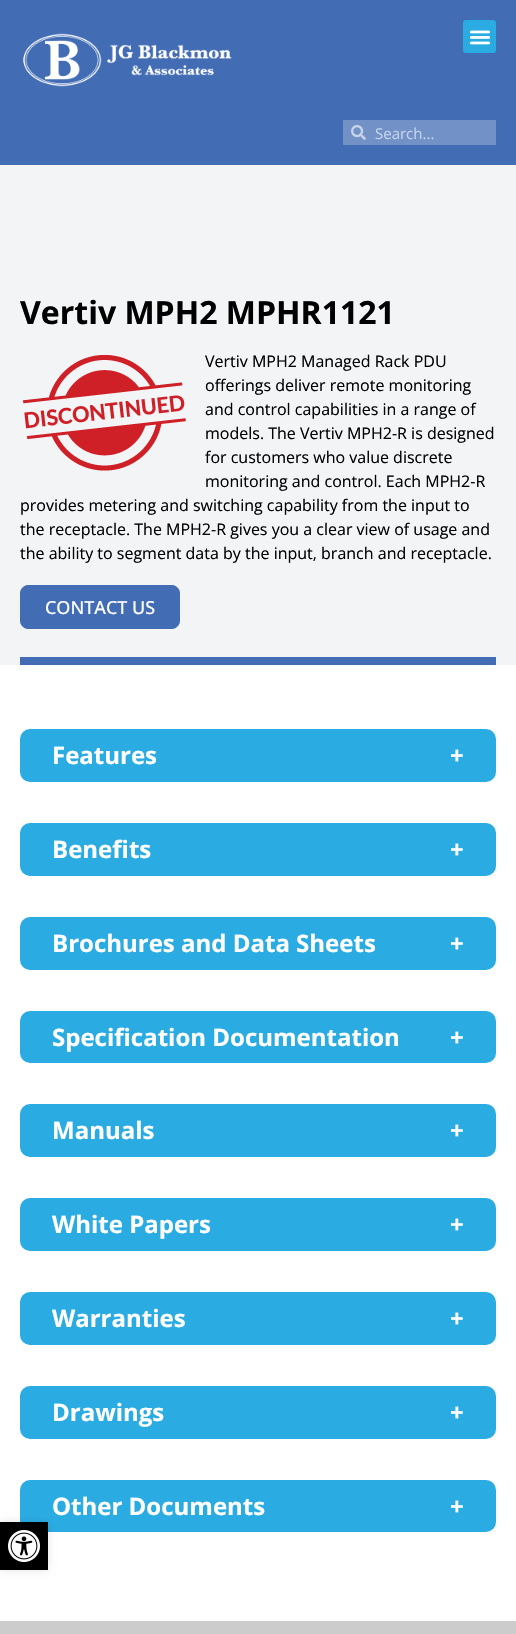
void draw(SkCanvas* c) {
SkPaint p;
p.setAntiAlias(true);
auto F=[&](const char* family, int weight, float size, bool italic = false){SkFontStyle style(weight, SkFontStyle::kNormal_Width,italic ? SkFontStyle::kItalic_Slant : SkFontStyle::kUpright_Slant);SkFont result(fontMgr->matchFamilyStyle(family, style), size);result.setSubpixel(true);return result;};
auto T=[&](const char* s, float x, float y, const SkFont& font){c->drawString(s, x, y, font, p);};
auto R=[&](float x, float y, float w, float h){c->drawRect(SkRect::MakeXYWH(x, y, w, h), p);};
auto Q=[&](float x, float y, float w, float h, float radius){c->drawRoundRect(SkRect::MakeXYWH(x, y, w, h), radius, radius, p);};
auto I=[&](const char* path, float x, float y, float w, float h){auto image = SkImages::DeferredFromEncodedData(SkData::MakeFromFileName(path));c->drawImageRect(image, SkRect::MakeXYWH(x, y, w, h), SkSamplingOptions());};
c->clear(0xffffffff);
p.setColor(0xff426cb4);
R(0,0,516,165);
p.setColor(0xff2aace3);
Q(463,20,33,33,3);
I("1.png",469,30,22,15);
I("2.png",23,33,209,54);
p.setColor(0xff7191c7);
R(343,120,153,25);
I("3.png",351,125,15,15);
auto f1 = F("Open Sans",400,15);
p.setColor(0xffc6d3e9);
T("Search...",375,139,f1);
p.setColor(0xfff3f4f6);
R(0,165,516,500);
p.setColor(0xff426cb4);
R(20,657,476,8);
auto f2 = F("Open Sans",700,32);
p.setColor(0xff000000);
T("Vertiv MPH2 MPHR1121",20,324,f2);
auto f3 = F("Open Sans",400,16);
T("Vertiv MPH2 Managed Rack PDU",205,367,f3);
T("offerings deliver remote monitoring",205,391,f3);
T("and control capabilities in a range of",205,415,f3);
T("models. The Vertiv MPH2-R is designed",205,439,f3);
T("for customers who value discrete",205,463,f3);
T("monitoring and control. Each MPH2-R",205,487,f3);
T("provides metering and switching capability from the input to",20,511,f3);
T("the receptacle. The MPH2-R gives you a clear view of usage and",20,535,f3);
T("the ability to segment data by the input, branch and receptacle.",20,559,f3);
I("4.png",23,355,163,116);
p.setColor(0xff426cb4);
c->drawRoundRect(SkRect::MakeXYWH(20.5,585.5,159,43),7.5,7.5,p);
p.setStroke(true);
p.setStrokeWidth(1);
c->drawRoundRect(SkRect::MakeXYWH(20.5,585.5,159,43),7.5,7.5,p);
auto f4 = F("Open Sans",500,18);
p.setStroke(false);
p.setColor(0xffffffff);
T("CONTACT US",45,614,f4);
p.setColor(0xff2aace3);
Q(20,729,476,53,10);
auto f5 = F("Open Sans",700,24);
p.setColor(0xffffffff);
T("Features",52,764,f5);
T("+",450,764,f5);
p.setColor(0xff2aace3);
Q(20,823,476,53,10);
p.setColor(0xffffffff);
T("Benefits",52,858,f5);
T("+",450,858,f5);
p.setColor(0xff2aace3);
Q(20,917,476,53,10);
p.setColor(0xffffffff);
T("Brochures and Data Sheets",52,952,f5);
T("+",450,952,f5);
p.setColor(0xff2aace3);
Q(20,1011,476,52,10);
p.setColor(0xffffffff);
T("Specification Documentation",52,1046,f5);
T("+",450,1046,f5);
p.setColor(0xff2aace3);
Q(20,1104,476,53,10);
p.setColor(0xffffffff);
T("Manuals",52,1139,f5);
T("+",450,1139,f5);
p.setColor(0xff2aace3);
Q(20,1198,476,53,10);
p.setColor(0xffffffff);
T("White Papers",52,1233,f5);
T("+",450,1233,f5);
p.setColor(0xff2aace3);
Q(20,1292,476,53,10);
p.setColor(0xffffffff);
T("Warranties",52,1327,f5);
T("+",450,1327,f5);
p.setColor(0xff2aace3);
Q(20,1386,476,53,10);
p.setColor(0xffffffff);
T("Drawings",52,1421,f5);
T("+",450,1421,f5);
p.setColor(0xff2aace3);
Q(20,1480,476,52,10);
p.setColor(0xffffffff);
T("Other Documents",52,1515,f5);
T("+",450,1515,f5);
p.setColor(0x1a000000);
p.setMaskFilter(SkMaskFilter::MakeBlur(kNormal_SkBlurStyle, 4));
c->drawRect(SkRect::MakeXYWH(0,1522,48,48),p);
p.setMaskFilter(nullptr);
p.setColor(0xff000000);
R(0,1522,48,48);
I("5.png",8,1530,32,32);
p.setColor(0xffcccccc);
R(0,1621,516,13);
}
